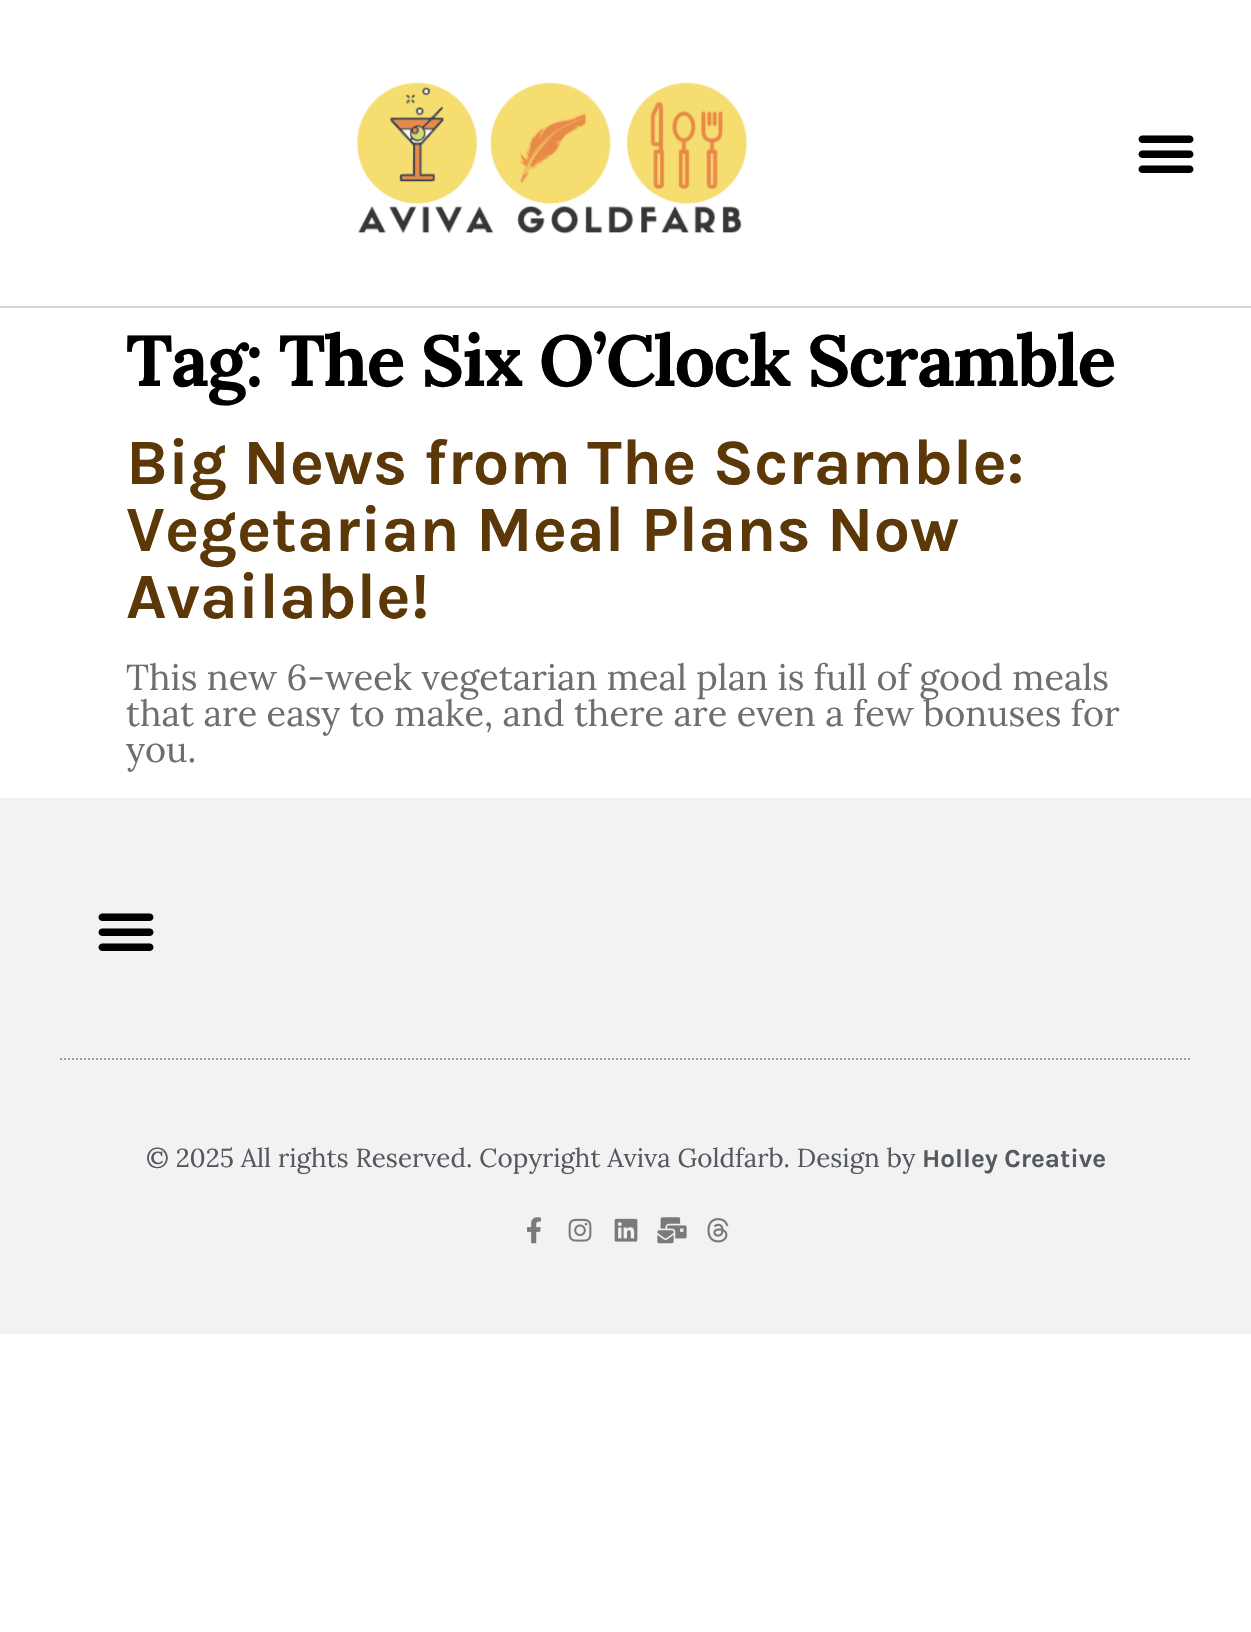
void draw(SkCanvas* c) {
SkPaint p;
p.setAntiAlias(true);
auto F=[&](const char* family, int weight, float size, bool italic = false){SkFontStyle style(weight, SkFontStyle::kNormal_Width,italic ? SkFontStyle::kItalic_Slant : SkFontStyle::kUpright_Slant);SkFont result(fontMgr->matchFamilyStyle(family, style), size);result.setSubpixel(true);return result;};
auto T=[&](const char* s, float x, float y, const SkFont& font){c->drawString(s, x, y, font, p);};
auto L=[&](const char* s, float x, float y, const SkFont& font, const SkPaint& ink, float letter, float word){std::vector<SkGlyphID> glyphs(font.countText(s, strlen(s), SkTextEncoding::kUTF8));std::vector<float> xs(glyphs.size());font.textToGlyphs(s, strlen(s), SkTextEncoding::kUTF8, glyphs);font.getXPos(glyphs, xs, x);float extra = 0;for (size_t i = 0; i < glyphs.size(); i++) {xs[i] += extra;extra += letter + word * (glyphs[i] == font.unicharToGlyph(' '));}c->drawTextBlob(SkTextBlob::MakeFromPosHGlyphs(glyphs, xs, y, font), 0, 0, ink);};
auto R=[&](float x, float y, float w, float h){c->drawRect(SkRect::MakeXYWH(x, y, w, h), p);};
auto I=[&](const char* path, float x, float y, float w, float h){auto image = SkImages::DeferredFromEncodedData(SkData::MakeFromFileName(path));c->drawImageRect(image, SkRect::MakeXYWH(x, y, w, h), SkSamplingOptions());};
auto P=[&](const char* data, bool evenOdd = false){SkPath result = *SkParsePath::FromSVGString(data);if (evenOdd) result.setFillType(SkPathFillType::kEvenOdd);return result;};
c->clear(0xffffffff);
p.setColor(0xffd3d3d3);
R(0,306,1251,2);
I("1.png",356,82,392,152);
I("2.png",1138,135,56,38);
auto f1 = F("Lora",700,72);
p.setColor(0xff000000);
L("Tag: The Six O’Clock Scramble",126,386,f1,p,-1.75,0);
auto f2 = F("Karla",700,64.75);
p.setColor(0xff5c3707);
T("Big News from The Scramble:",126,484,f2);
T("Vegetarian Meal Plans Now",126,551,f2);
T("Available!",126,618,f2);
auto f3 = F("Lora",400,36);
p.setColor(0xff6e6e6e);
T("This new 6-week vegetarian meal plan is full of good meals",126,690,f3);
T("that are easy to make, and there are even a few bonuses for",126,726,f3);
T("you.",126,762,f3);
p.setColor(0xfff2f2f2);
R(0,798,1251,536);
p.setStroke(true);
p.setStrokeWidth(2);
p.setColor(0xff9b9b9b);
p.setPathEffect(SkDashPathEffect::Make({{2,2}}, 0));
c->drawPath(P("M60 1059h1132"),p);
p.setPathEffect(nullptr);
I("3.png",98,913,56,38);
auto f4 = F("Lora",400,26);
p.setStroke(false);
p.setColor(0xff54595f);
T("© 2025 All rights Reserved. Copyright Aviva Goldfarb. Design by",146,1167,f4);
auto f5 = F("Karla",700,26);
T("Holley Creative",922,1167,f5);
I("4.png",527,1217,14,27);
I("5.png",568,1218,24,24);
I("6.png",614,1218,24,24);
I("7.png",657,1217,30,27);
I("8.png",707,1218,22,25);
}
